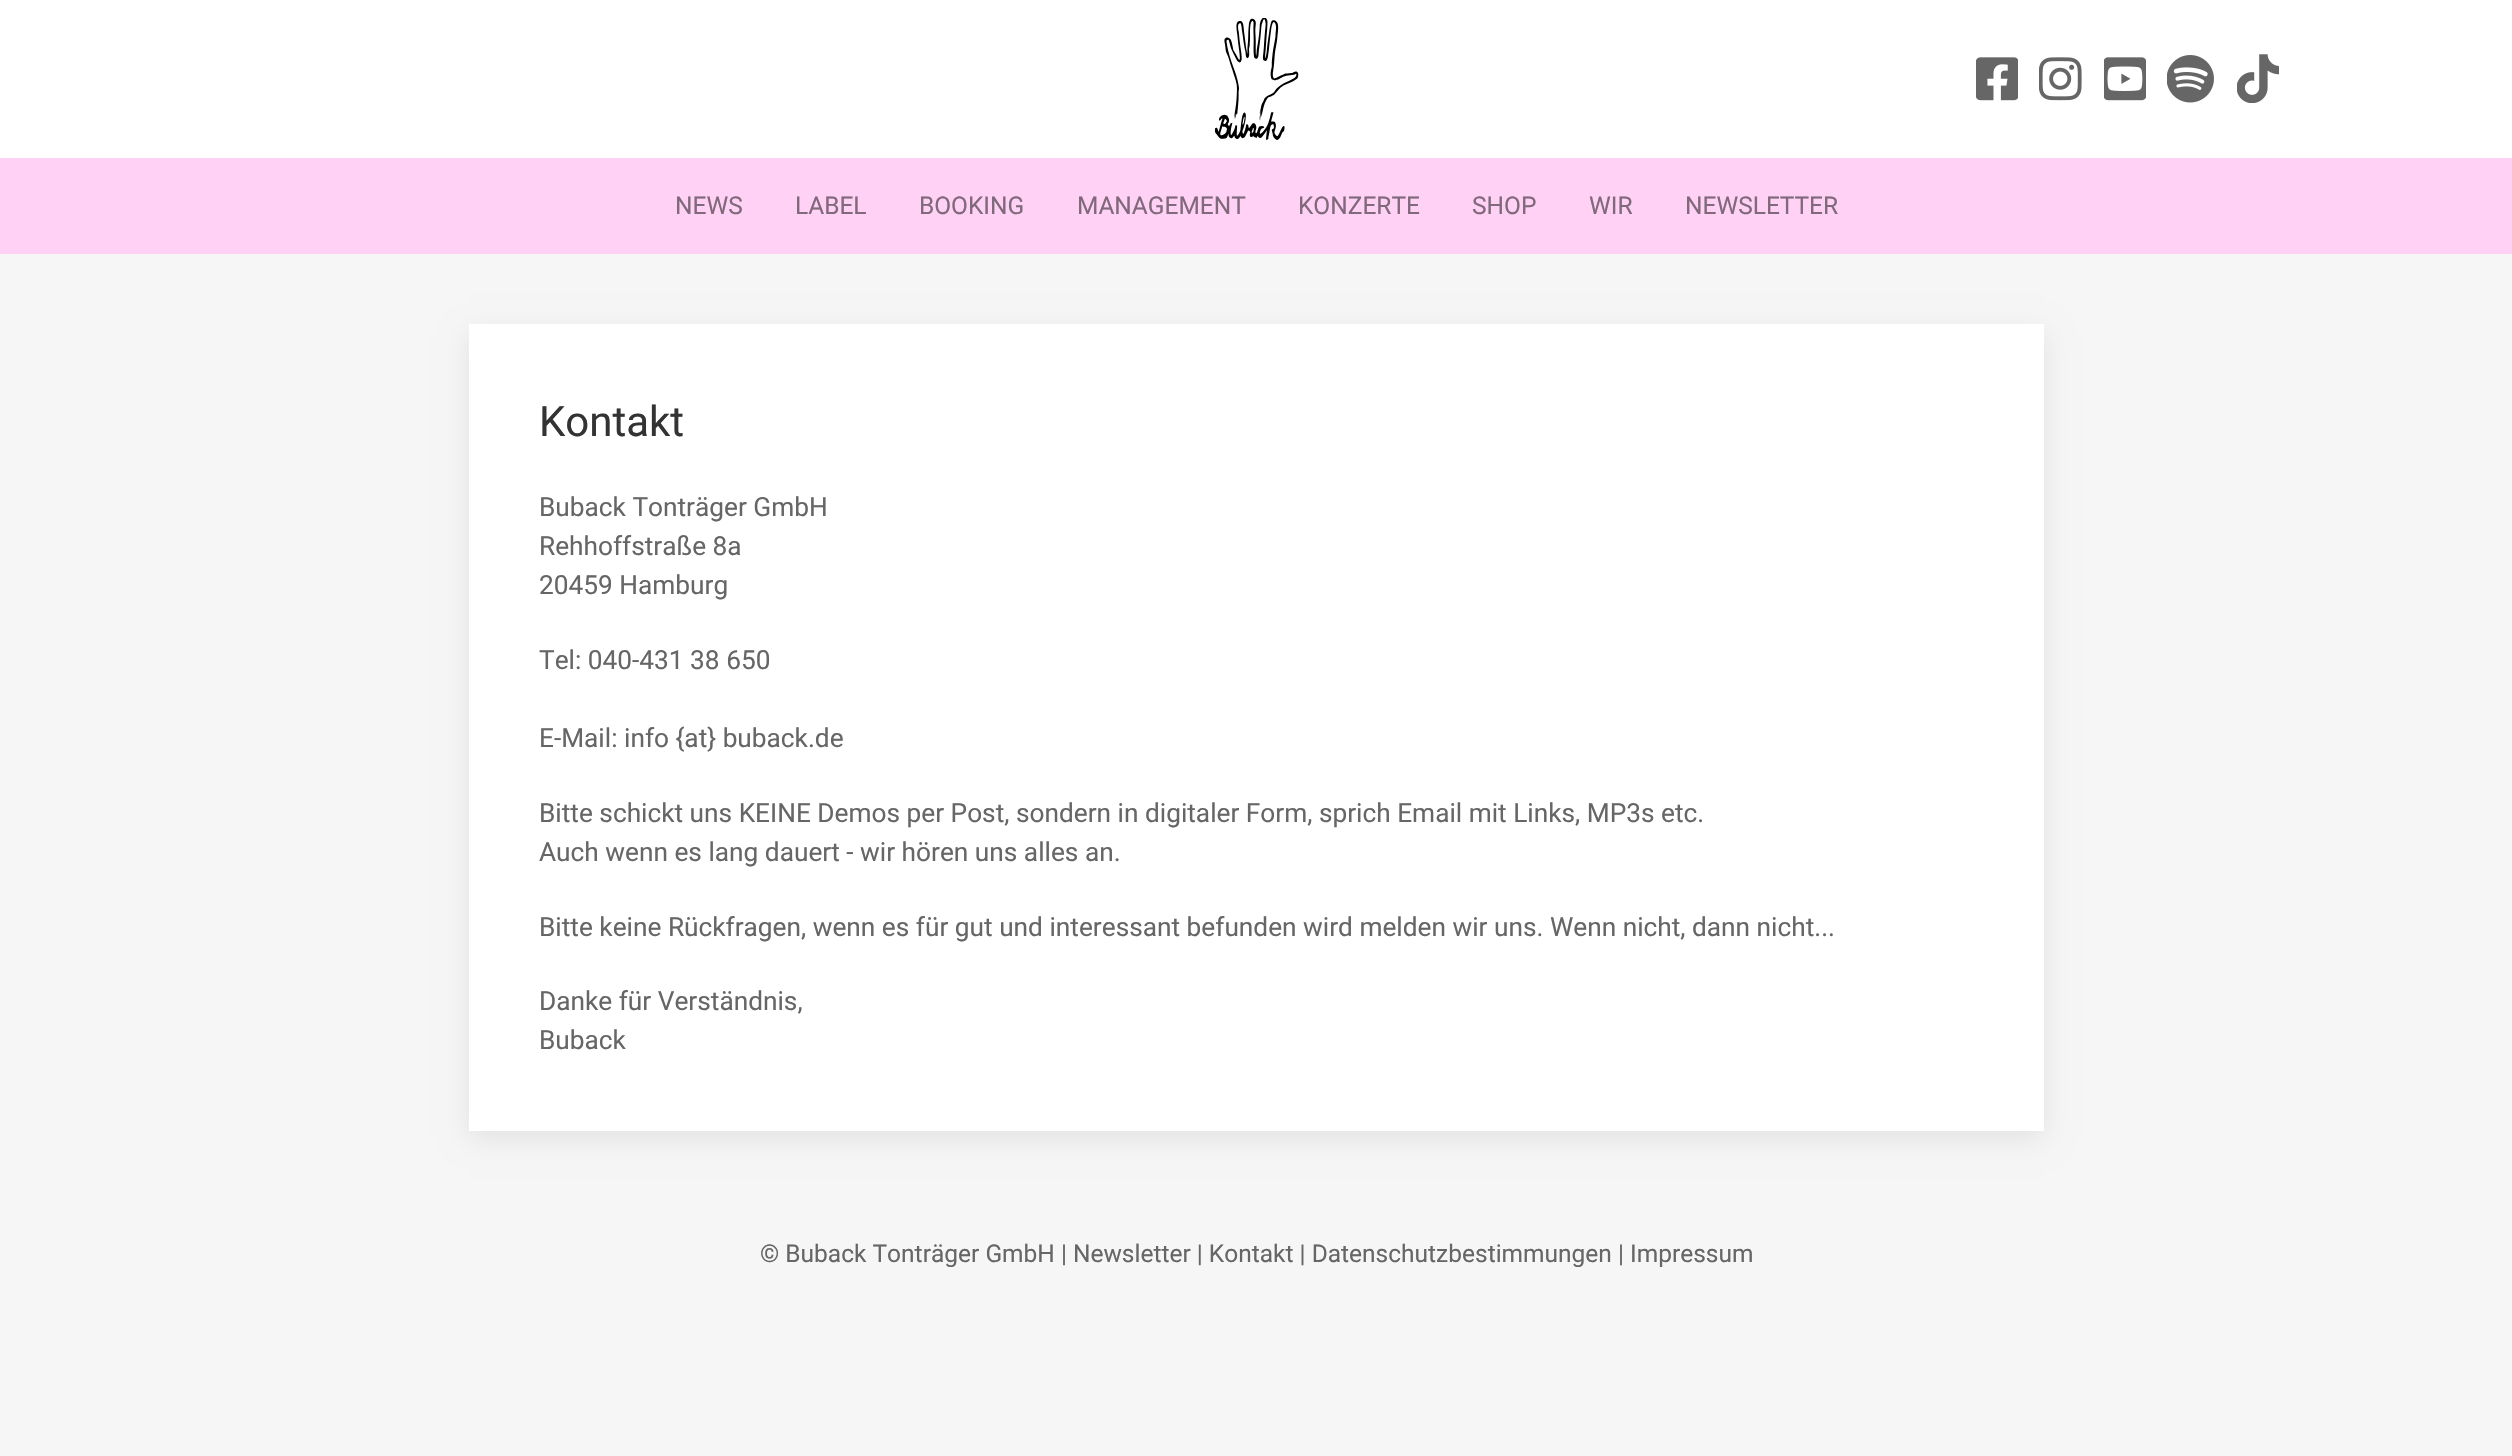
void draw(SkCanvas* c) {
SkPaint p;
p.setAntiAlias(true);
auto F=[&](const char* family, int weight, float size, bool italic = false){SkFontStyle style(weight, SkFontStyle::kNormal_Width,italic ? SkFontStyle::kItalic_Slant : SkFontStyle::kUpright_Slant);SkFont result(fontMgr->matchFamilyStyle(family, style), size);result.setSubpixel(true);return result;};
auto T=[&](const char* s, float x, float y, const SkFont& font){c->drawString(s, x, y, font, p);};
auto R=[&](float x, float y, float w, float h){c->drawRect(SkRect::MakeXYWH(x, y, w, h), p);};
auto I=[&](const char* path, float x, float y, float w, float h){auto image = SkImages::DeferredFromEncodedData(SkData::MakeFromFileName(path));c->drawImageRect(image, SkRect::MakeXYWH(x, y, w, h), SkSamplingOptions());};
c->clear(0xfff6f6f6);
p.setColor(0xffffffff);
R(0,0,2512,158);
I("1.png",1215,18,84,122);
I("2.png",1976,57,42,44);
I("3.png",2039,57,43,44);
I("4.png",2104,57,42,44);
I("5.png",2167,55,47,48);
I("6.png",2237,54,42,49);
p.setColor(0xffffd1f5);
R(0,158,2512,96);
auto f1 = F("Roboto",400,24.5);
p.setColor(0xff80697b);
T("NEWS",675,214,f1);
T("LABEL",795,214,f1);
T("BOOKING",919,214,f1);
T("MANAGEMENT",1077,214,f1);
T("KONZERTE",1298,214,f1);
T("SHOP",1472,214,f1);
T("WIR",1589,214,f1);
T("NEWSLETTER",1685,214,f1);
p.setColor(0x14000000);
p.setMaskFilter(SkMaskFilter::MakeBlur(kNormal_SkBlurStyle, 13));
c->drawRect(SkRect::MakeXYWH(469,333,1575,806),p);
p.setMaskFilter(nullptr);
p.setColor(0xffffffff);
R(469,324,1575,807);
auto f2 = F("Roboto",400,42);
p.setColor(0xff333333);
T("Kontakt",539,436,f2);
auto f3 = F("Roboto",400,26.25);
p.setColor(0xff666666);
T("Buback Tonträger GmbH",539,516,f3);
T("Rehhoffstraße 8a",539,555,f3);
T("20459 Hamburg",539,594,f3);
T("Tel: 040-431 38 650",539,669,f3);
T("E-Mail: info {at} buback.de",539,747,f3);
T("Bitte schickt uns KEINE Demos per Post, sondern in digitaler Form, sprich Email mit Links, MP3s etc.",539,822,f3);
T("Auch wenn es lang dauert - wir hören uns alles an.",539,861,f3);
T("Bitte keine Rückfragen, wenn es für gut und interessant befunden wird melden wir uns. Wenn nicht, dann nicht...",539,936,f3);
T("Danke für Verständnis,",539,1010,f3);
T("Buback",539,1049,f3);
T("© Buback Tonträger GmbH | Newsletter | Kontakt | Datenschutzbestimmungen | Impressum",760,1262,f1);
}
